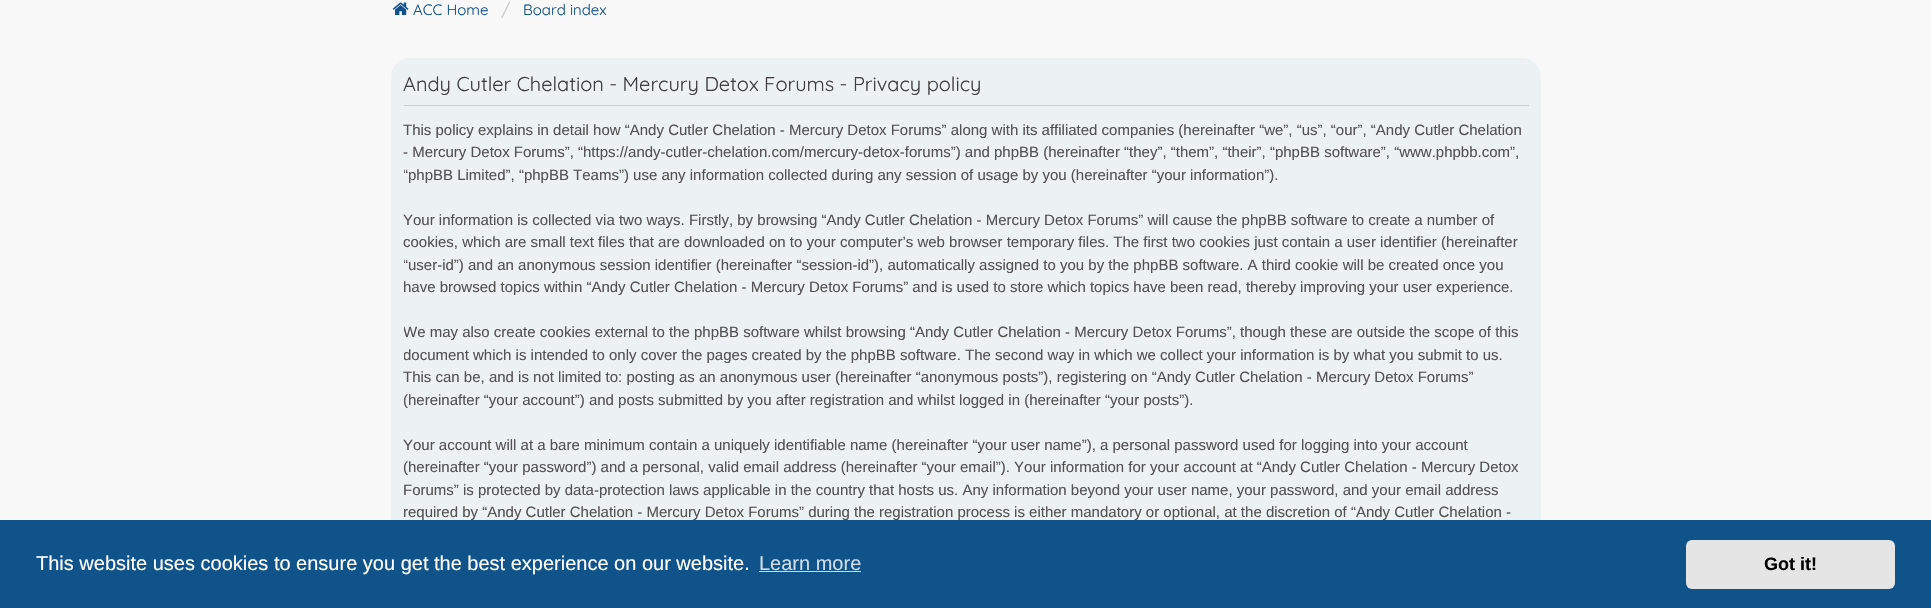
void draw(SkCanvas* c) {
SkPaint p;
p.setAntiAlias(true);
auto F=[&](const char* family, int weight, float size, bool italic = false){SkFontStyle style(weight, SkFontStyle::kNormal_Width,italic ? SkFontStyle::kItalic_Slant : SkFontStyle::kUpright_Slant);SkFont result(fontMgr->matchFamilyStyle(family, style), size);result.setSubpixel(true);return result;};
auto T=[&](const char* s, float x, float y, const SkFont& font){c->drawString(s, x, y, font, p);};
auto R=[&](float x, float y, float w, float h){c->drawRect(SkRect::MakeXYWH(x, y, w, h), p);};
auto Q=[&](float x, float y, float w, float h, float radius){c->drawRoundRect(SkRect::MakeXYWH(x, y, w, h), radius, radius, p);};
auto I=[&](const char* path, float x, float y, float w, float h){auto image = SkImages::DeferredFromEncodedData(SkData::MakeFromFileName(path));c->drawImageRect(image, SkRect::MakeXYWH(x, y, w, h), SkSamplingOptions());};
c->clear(0xfff8f8f8);
I("1.png",392,2,17,13);
auto f1 = F("Quicksand",400,15);
p.setColor(0xff105289);
T("ACC Home",413,15,f1);
auto f2 = F("Quicksand",400,18);
p.setColor(0xffcacaca);
T("/",501,16,f2);
p.setColor(0xff105289);
T("Board index",523,15,f1);
p.setColor(0xffecf1f3);
Q(391,58,1150,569,19);
p.setColor(0xffcccccc);
R(404,105,1125,1);
auto f3 = F("Quicksand",400,20);
p.setColor(0xff3f3f3f);
T("Andy Cutler Chelation - Mercury Detox Forums - Privacy policy",403,91,f3);
auto f4 = F("Liberation Sans",400,15);
p.setColor(0xff525252);
T("This policy explains in detail how “Andy Cutler Chelation - Mercury Detox Forums” along with its affiliated companies (hereinafter “we”, “us”, “our”, “Andy Cutler Chelation",403,135,f4);
T("- Mercury Detox Forums”, “https://andy-cutler-chelation.com/mercury-detox-forums”) and phpBB (hereinafter “they”, “them”, “their”, “phpBB software”, “www.phpbb.com”,",403,157,f4);
c->save();
c->clipRect(SkRect::MakeXYWH(404,64,1125,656));
T("“phpBB Limited”, “phpBB Teams”) use any information collected during any session of usage by you (hereinafter “your information”).",403,180,f4);
c->restore();
T("Your information is collected via two ways. Firstly, by browsing “Andy Cutler Chelation - Mercury Detox Forums” will cause the phpBB software to create a number of",403,225,f4);
T("cookies, which are small text files that are downloaded on to your computer’s web browser temporary files. The first two cookies just contain a user identifier (hereinafter",403,247,f4);
c->save();
c->clipRect(SkRect::MakeXYWH(404,64,1125,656));
T("“user-id”) and an anonymous session identifier (hereinafter “session-id”), automatically assigned to you by the phpBB software. A third cookie will be created once you",403,270,f4);
c->restore();
T("have browsed topics within “Andy Cutler Chelation - Mercury Detox Forums” and is used to store which topics have been read, thereby improving your user experience.",403,292,f4);
c->save();
c->clipRect(SkRect::MakeXYWH(404,64,1125,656));
T("We may also create cookies external to the phpBB software whilst browsing “Andy Cutler Chelation - Mercury Detox Forums”, though these are outside the scope of this",403,337,f4);
T("document which is intended to only cover the pages created by the phpBB software. The second way in which we collect your information is by what you submit to us.",403,360,f4);
c->restore();
T("This can be, and is not limited to: posting as an anonymous user (hereinafter “anonymous posts”), registering on “Andy Cutler Chelation - Mercury Detox Forums”",403,382,f4);
T("(hereinafter “your account”) and posts submitted by you after registration and whilst logged in (hereinafter “your posts”).",403,405,f4);
T("Your account will at a bare minimum contain a uniquely identifiable name (hereinafter “your user name”), a personal password used for logging into your account",403,450,f4);
T("(hereinafter “your password”) and a personal, valid email address (hereinafter “your email”). Your information for your account at “Andy Cutler Chelation - Mercury Detox",403,472,f4);
T("Forums” is protected by data-protection laws applicable in the country that hosts us. Any information beyond your user name, your password, and your email address",403,495,f4);
T("required by “Andy Cutler Chelation - Mercury Detox Forums” during the registration process is either mandatory or optional, at the discretion of “Andy Cutler Chelation -",403,517,f4);
p.setColor(0xff0f538a);
R(0,520,1931,88);
auto f5 = F("Liberation Sans",400,20);
p.setColor(0xffffffff);
T("This website uses cookies to ensure you get the best experience on our website.",36,570,f5);
p.setColor(0xffcfdde8);
T("Learn more",759,570,f5);
R(759,571,102,1);
p.setColor(0xffe5e5e5);
Q(1686,540,209,49,6);
auto f6 = F("Liberation Sans",700,18);
p.setColor(0xff000000);
T("Got it!",1764,570,f6);
}
